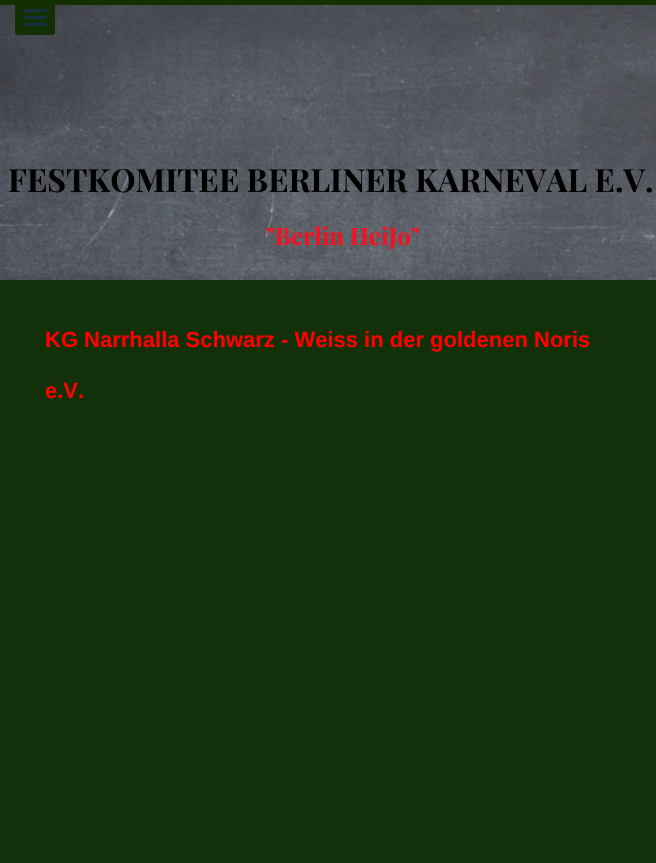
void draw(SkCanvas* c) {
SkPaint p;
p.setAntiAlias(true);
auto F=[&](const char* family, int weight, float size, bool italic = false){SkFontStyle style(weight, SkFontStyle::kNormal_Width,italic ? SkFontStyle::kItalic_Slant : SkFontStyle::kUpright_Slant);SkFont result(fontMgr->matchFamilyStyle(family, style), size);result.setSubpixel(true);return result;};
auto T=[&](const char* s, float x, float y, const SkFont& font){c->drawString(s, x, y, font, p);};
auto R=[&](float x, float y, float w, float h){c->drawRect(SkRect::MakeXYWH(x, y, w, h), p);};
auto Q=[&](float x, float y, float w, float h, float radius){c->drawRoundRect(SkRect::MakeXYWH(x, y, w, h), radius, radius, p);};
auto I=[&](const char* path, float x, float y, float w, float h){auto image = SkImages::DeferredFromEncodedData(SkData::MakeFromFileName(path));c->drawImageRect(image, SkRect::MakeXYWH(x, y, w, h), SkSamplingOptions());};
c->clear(0xffffffff);
I("1.png",0,5,656,275);
p.setColor(0xff123001);
R(0,0,656,5);
Q(15,0,40,35,3);
p.setColor(0xff123041);
R(24,9,22,3);
R(24,16,22,3);
R(24,23,22,3);
auto f1 = F("Playfair Display",700,32);
p.setColor(0xff000000);
T("FESTKOMITEE BERLINER KARNEVAL E.V.",8,192,f1);
auto f2 = F("Playfair Display",700,24);
p.setColor(0xfff71120);
T("\"Berlin HeiJo\"",266,245,f2);
p.setColor(0x1a000000);
p.setMaskFilter(SkMaskFilter::MakeBlur(kNormal_SkBlurStyle, 2.5));
c->drawRect(SkRect::MakeXYWH(-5,275,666,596),p);
p.setMaskFilter(nullptr);
p.setColor(0xff123009);
R(0,280,656,583);
auto f3 = F("Liberation Sans",700,22);
p.setColor(0xffff0000);
T("KG Narrhalla Schwarz - Weiss in der goldenen Noris",45,347,f3);
T("e.V.",45,398,f3);
}
